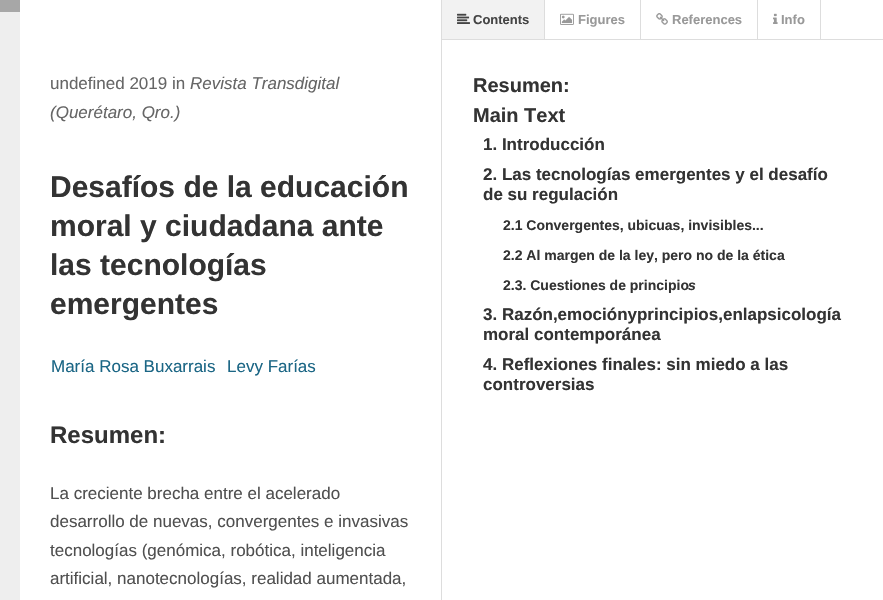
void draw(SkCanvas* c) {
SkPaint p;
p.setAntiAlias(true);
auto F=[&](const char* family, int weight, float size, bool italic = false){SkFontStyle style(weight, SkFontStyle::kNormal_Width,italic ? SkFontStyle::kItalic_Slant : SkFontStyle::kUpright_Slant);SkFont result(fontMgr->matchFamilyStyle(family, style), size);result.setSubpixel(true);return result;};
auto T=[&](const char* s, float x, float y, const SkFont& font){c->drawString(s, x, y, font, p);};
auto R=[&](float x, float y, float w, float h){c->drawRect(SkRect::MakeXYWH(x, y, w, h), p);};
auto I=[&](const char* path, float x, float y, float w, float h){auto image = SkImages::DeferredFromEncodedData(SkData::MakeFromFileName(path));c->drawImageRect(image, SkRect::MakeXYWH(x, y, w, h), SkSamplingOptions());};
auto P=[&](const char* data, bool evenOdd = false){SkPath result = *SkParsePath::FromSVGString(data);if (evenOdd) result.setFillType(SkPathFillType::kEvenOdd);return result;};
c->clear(0xffffffff);
p.setColor(0xffdddddd);
R(441,0,1,600);
p.setColor(0xffeeeeee);
R(0,12,20,588);
p.setColor(0xffa7a7a7);
R(0,0,20,12);
auto f1 = F("Liberation Sans",400,17);
p.setColor(0xff666666);
T("undefined 2019 in",50,89,f1);
auto f2 = F("Liberation Sans",400,17,true);
T("Revista Transdigital",190,89,f2);
T("(Querétaro, Qro.)",50,118,f2);
auto f3 = F("Liberation Sans",700,30);
p.setColor(0xff333333);
T("Desafíos de la educación",50,197,f3);
T("moral y ciudadana ante",50,236,f3);
T("las tecnologías",50,275,f3);
T("emergentes",50,314,f3);
p.setColor(0xff1b6685);
T("María Rosa Buxarrais",51,372,f1);
T("Levy Farías",227,372,f1);
auto f4 = F("Liberation Sans",700,24);
p.setColor(0xff333333);
T("Resumen:",50,443,f4);
p.setColor(0xff505050);
T("La creciente brecha entre el acelerado",50,499,f1);
T("desarrollo de nuevas, convergentes e invasivas",50,527,f1);
T("tecnologías (genómica, robótica, inteligencia",50,556,f1);
T("artificial, nanotecnologías, realidad aumentada,",50,584,f1);
p.setColor(0xffdddddd);
R(442,39,441,1);
p.setColor(0xfff2f2f2);
R(442,0,102,39);
c->save();
c->clipRect(SkRect::MakeXYWH(442,0,441,39));
p.setColor(0xffdddddd);
c->drawPath(P("M545 0v43l-1-3v-40z"),p);
c->restore();
I("1.png",457,13,13,11);
auto f5 = F("Liberation Sans",700,13);
p.setColor(0xff444444);
T("Contents",473,24,f5);
p.setColor(0xffdddddd);
R(640,0,1,39);
I("2.png",560,13,14,12);
p.setColor(0xff999999);
T("Figures",578,24,f5);
p.setColor(0xffdddddd);
R(757,0,1,39);
I("3.png",656,13,12,12);
p.setColor(0xff999999);
T("References",672,24,f5);
p.setColor(0xffdddddd);
R(820,0,1,39);
I("4.png",773,13,5,11);
p.setColor(0xff999999);
T("Info",781,24,f5);
auto f6 = F("Liberation Sans",700,20);
p.setColor(0xff333333);
T("Resumen:",473,92,f6);
T("Main Text",473,122,f6);
auto f7 = F("Liberation Sans",700,17);
T("1. Introducción",483,150,f7);
T("2. Las tecnologías emergentes y el desafío",483,180,f7);
T("de su regulación",483,200,f7);
auto f8 = F("Liberation Sans",700,14);
T("2.1 Convergentes, ubicuas, invisibles...",503,230,f8);
T("2.2 Al margen de la ley, pero no de la ética",503,260,f8);
T("2.3. Cuestiones de principio",503,290,f8);
auto f9 = F("Liberation Sans",700,14,true);
T("s",688,290,f9);
T("3. Razón,emociónyprincipios,enlapsicología",483,320,f7);
T("moral contemporánea",483,340,f7);
T("4. Reflexiones finales: sin miedo a las",483,370,f7);
T("controversias",483,390,f7);
}
